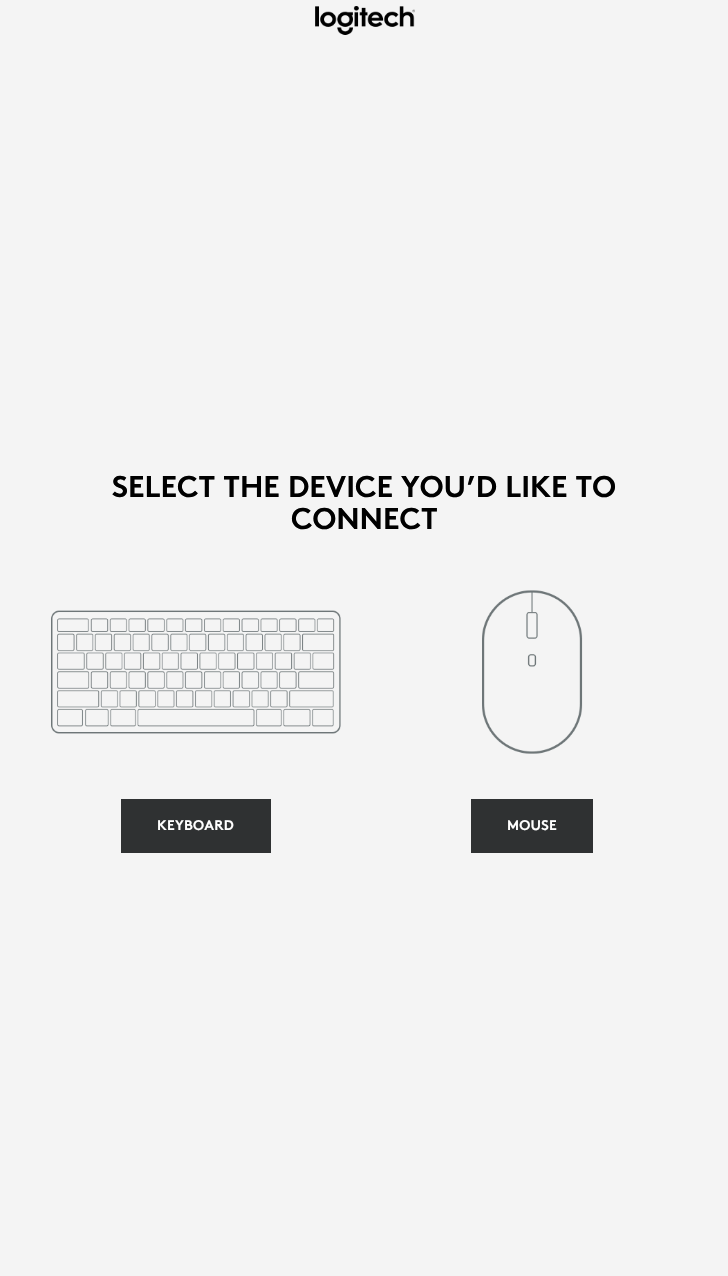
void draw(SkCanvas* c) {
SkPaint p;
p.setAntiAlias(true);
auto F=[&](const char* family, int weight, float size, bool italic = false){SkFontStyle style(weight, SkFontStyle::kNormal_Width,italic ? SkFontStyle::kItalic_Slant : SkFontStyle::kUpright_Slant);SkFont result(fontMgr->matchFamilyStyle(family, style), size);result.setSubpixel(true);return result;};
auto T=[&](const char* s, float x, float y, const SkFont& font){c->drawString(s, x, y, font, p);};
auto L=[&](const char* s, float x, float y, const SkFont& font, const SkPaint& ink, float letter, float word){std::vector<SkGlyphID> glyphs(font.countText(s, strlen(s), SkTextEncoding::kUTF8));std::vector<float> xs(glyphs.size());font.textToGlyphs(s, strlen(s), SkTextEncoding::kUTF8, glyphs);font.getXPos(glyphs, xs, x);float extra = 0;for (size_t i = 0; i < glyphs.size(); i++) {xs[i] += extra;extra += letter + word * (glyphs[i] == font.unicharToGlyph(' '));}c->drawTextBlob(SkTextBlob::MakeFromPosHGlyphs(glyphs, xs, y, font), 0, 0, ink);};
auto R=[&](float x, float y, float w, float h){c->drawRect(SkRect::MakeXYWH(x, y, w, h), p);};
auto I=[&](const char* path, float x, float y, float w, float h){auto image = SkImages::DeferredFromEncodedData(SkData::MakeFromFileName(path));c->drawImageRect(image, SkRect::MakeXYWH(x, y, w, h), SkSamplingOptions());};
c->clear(0xfff4f4f4);
I("1.png",315,6,100,29);
auto f1 = F("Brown",700,30);
p.setColor(0xff000000);
T("SELECT THE DEVICE YOU’D LIKE TO",112,497,f1);
T("CONNECT",291,529,f1);
I("2.png",51,610,290,124);
p.setColor(0xff2f3132);
R(121,799,150,54);
auto f2 = F("Brown",700,14);
p.setColor(0xffffffff);
L("KEYBOARD",157,830,f2,p,.25,0);
I("3.png",482,590,101,164);
p.setColor(0xff2f3132);
R(471,799,122,54);
p.setColor(0xffffffff);
L("MOUSE",507,830,f2,p,.25,0);
}
